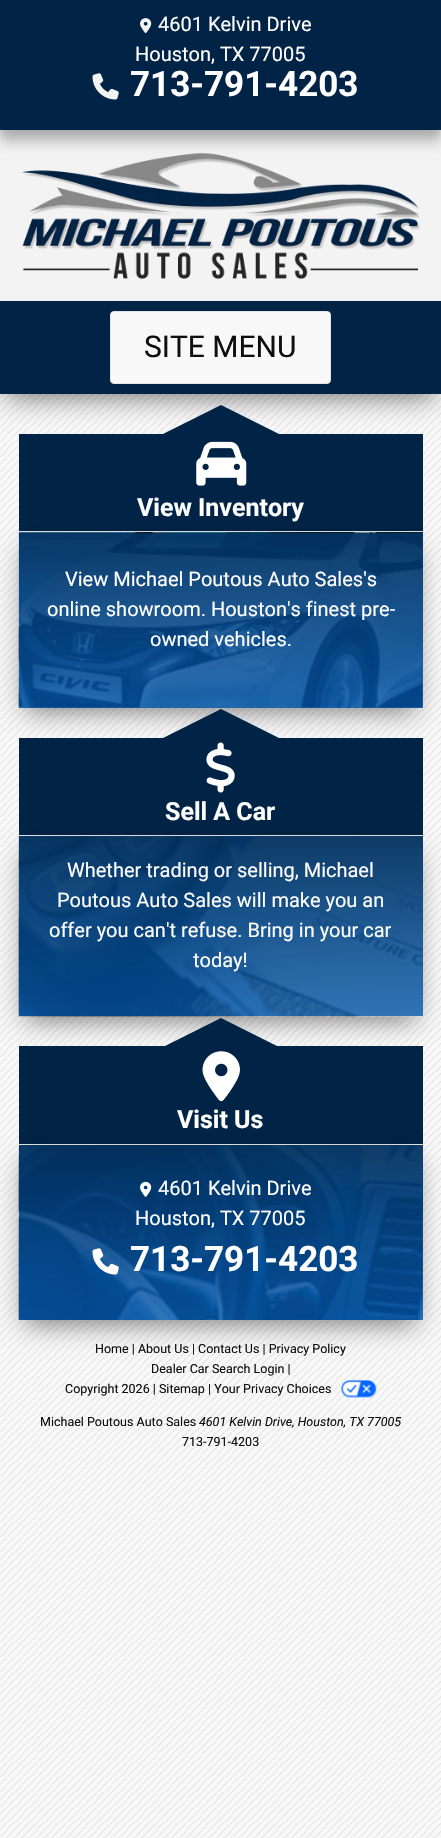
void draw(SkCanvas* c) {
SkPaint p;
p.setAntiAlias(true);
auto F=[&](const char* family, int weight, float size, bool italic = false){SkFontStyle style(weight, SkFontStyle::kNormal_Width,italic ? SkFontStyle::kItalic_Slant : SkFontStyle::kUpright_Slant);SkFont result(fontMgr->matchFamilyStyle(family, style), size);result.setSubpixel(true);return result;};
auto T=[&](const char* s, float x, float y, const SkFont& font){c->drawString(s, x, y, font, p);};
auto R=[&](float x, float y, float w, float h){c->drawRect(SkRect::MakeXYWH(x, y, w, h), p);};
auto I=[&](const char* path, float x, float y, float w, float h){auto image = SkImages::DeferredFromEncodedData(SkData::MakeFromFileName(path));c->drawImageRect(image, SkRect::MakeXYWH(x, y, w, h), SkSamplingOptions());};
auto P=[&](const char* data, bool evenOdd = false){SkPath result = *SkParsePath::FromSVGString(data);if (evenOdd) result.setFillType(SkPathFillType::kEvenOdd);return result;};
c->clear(0xfff8f8f8);
I("1.png",0,394,441,1444);
p.setColor(0x80000000);
p.setMaskFilter(SkMaskFilter::MakeBlur(kNormal_SkBlurStyle, 12.5));
c->drawRect(SkRect::MakeXYWH(6,16,429,382),p);
p.setMaskFilter(nullptr);
p.setColor(0xfff3f3f3);
R(0,130,441,171);
p.setColor(0x1a000000);
p.setMaskFilter(SkMaskFilter::MakeBlur(kNormal_SkBlurStyle, 3));
c->drawRect(SkRect::MakeXYWH(0,6,441,130),p);
p.setMaskFilter(nullptr);
p.setColor(0x33000000);
p.setMaskFilter(SkMaskFilter::MakeBlur(kNormal_SkBlurStyle, 6));
c->drawRect(SkRect::MakeXYWH(0,13,441,130),p);
p.setMaskFilter(nullptr);
p.setColor(0xff012345);
R(0,0,441,130);
I("2.png",140,18,12,16);
auto f1 = F("Roboto",400,20);
p.setColor(0xffffffff);
T("4601 Kelvin Drive",158,31,f1);
T("Houston, TX 77005",135,61,f1);
I("3.png",92,73,27,27);
auto f2 = F("Roboto",700,35);
T("713-791-4203",130,96,f2);
I("4.png",22,152,398,127);
p.setColor(0xff012345);
R(0,301,441,93);
p.setColor(0xfff8f8f8);
c->drawRoundRect(SkRect::MakeXYWH(110.5,311.5,220,72),3.5,3.5,p);
p.setStroke(true);
p.setStrokeWidth(1);
p.setColor(0xffe5e5e5);
c->drawRoundRect(SkRect::MakeXYWH(110.5,311.5,220,72),3.5,3.5,p);
auto f3 = F("Roboto",400,30);
p.setStroke(false);
p.setColor(0xff0e0e0e);
T("SITE MENU",144,357,f3);
p.setColor(0xff012345);
R(19,434,404,99);
c->drawPath(P("M281 435h-120l60-30z"),p);
p.setColor(0xffe5e5e5);
R(19,531,404,1);
I("5.png",196,441,51,45);
auto f4 = F("Roboto",700,25);
p.setColor(0xffffffff);
T("View Inventory",137,516,f4);
p.setColor(0x80000000);
p.setMaskFilter(SkMaskFilter::MakeBlur(kNormal_SkBlurStyle, 12.5));
c->drawRect(SkRect::MakeXYWH(25,549,391,162),p);
p.setMaskFilter(nullptr);
I("6.png",18,532,405,176);
{
const SkColor colors[] = {0xf201305e,0xcc0256aa};
const float stops[] = {0,1};
const SkPoint ends[] = {{221,533}, {221,708}};
p.setShader(SkGradientShader::MakeLinear(ends, colors, stops, 2, SkTileMode::kClamp));
p.setAlpha(255);
}
R(19,533,404,175);
p.setShader(nullptr);
p.setColor(0xffffffff);
T("View Michael Poutous Auto Sales's",65,586,f1);
T("online showroom. Houston's finest pre-",47,616,f1);
T("owned vehicles.",150,646,f1);
p.setColor(0xff012345);
R(19,738,404,97);
c->drawPath(P("M281 739h-120l60-30z"),p);
p.setColor(0xffe5e5e5);
R(19,835,404,1);
I("7.png",206,742,29,51);
p.setColor(0xffffffff);
T("Sell A Car",165,820,f4);
p.setColor(0x80000000);
p.setMaskFilter(SkMaskFilter::MakeBlur(kNormal_SkBlurStyle, 12.5));
c->drawRect(SkRect::MakeXYWH(25,853,391,167),p);
p.setMaskFilter(nullptr);
I("8.png",18,836,405,181);
{
const SkColor colors[] = {0xf201305e,0xcc0256aa};
const float stops[] = {0,1};
const SkPoint ends[] = {{221,836}, {221,1016}};
p.setShader(SkGradientShader::MakeLinear(ends, colors, stops, 2, SkTileMode::kClamp));
p.setAlpha(255);
}
R(19,836,404,180);
p.setShader(nullptr);
p.setColor(0xffffffff);
T("Whether trading or selling, Michael",67,877,f1);
T("Poutous Auto Sales will make you an",57,907,f1);
T("offer you can't refuse. Bring in your car",49,937,f1);
T("today!",193,967,f1);
p.setColor(0xff012345);
R(19,1046,404,98);
c->drawPath(P("M281 1048h-120l60-30z"),p);
p.setColor(0xffe5e5e5);
R(19,1144,404,1);
I("9.png",202,1051,38,51);
p.setColor(0xffffffff);
T("Visit Us",177,1128,f4);
p.setColor(0x80000000);
p.setMaskFilter(SkMaskFilter::MakeBlur(kNormal_SkBlurStyle, 12.5));
c->drawRect(SkRect::MakeXYWH(25,1161,391,163),p);
p.setMaskFilter(nullptr);
I("10.png",18,1145,405,175);
{
const SkColor colors[] = {0xf201305e,0xcc0256aa};
const float stops[] = {0,1};
const SkPoint ends[] = {{221,1145}, {221,1320}};
p.setShader(SkGradientShader::MakeLinear(ends, colors, stops, 2, SkTileMode::kClamp));
p.setAlpha(255);
}
R(19,1145,404,175);
I("11.png",140,1181,12,16);
p.setShader(nullptr);
p.setColor(0xffffffff);
T("4601 Kelvin Drive",158,1195,f1);
T("Houston, TX 77005",135,1225,f1);
I("12.png",92,1248,27,27);
T("713-791-4203",130,1271,f2);
auto f5 = F("Roboto",400,12.5);
p.setColor(0xff0e0e0e);
T("Home | About Us | Contact Us | Privacy Policy",95,1353,f5);
T("Dealer Car Search Login |",151,1373,f5);
T("Copyright 2026 | Sitemap | Your Privacy Choices",65,1393,f5);
I("13.png",341,1380,36,18);
T("Michael Poutous Auto Sales",40,1426,f5);
auto f6 = F("Roboto",400,12.5,true);
T("4601 Kelvin Drive, Houston, TX 77005",199,1426,f6);
T("713-791-4203",182,1446,f5);
}
